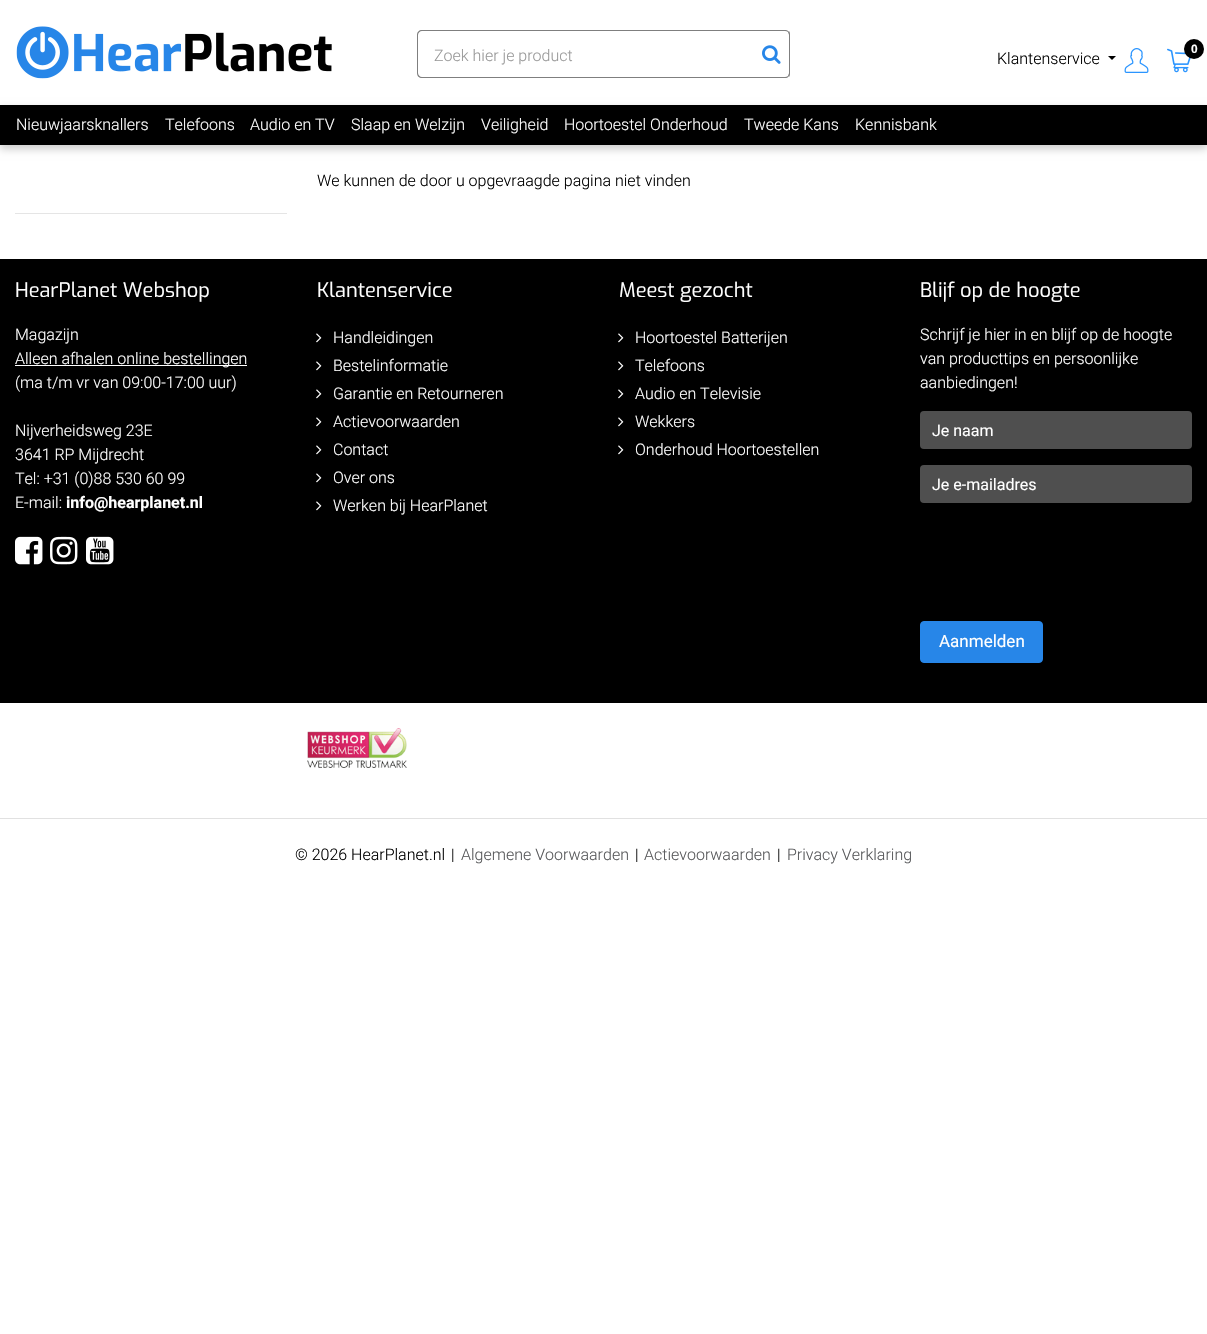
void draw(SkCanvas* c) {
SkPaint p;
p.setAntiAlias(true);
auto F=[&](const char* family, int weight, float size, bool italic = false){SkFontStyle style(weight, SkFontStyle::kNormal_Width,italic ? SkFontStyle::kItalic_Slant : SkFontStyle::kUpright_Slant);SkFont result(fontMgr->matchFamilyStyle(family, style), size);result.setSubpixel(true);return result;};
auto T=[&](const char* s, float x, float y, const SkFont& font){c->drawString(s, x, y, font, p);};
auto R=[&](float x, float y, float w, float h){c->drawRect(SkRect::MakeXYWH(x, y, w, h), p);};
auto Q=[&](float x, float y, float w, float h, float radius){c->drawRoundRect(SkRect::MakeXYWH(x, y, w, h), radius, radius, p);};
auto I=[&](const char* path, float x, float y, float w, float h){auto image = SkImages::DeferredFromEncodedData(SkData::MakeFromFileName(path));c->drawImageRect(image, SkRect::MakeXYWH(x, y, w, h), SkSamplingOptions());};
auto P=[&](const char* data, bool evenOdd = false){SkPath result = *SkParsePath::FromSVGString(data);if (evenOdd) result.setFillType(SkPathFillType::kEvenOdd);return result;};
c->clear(0xffffffff);
I("1.png",16,26,316,53);
p.setColor(0xff7f7f7f);
c->drawPath(P("M422 30h332v48h-332c-3 0-5-2-5-5v-38c0-3 2-5 5-5zm0 1h332v46h-332c-2 0-4-2-4-4v-38c0-2 2-4 4-4z",true),p);
auto f1 = F("Roboto",300,16);
p.setColor(0xff999999);
T("Zoek hier je product",434,61,f1);
p.setColor(0xff7f7f7f);
c->drawPath(P("M753 30l1 1h31c1 0 2 .5 3 1l.5-.5c-.5-1-2-1.5-3.5-1.5z"),p);
c->drawPath(P("M790 73v-38c0-1 0-3-1-4l-1 1c0 1 1 2 1 3v38c0 1-1 2-1 3l1 1c1-1 1-3 1-4z"),p);
c->drawPath(P("M785 78c1.5 0 3-.5 3.5-1.5l-.5-.5c-1 .5-2 1-3 1h-31l-1 1z"),p);
I("2.png",762,45,19,19);
p.setColor(0xff000000);
T("Klantenservice",997,64,f1);
c->drawPath(P("M1108 56h8l-4 4z"),p);
I("3.png",1124,48,25,25);
I("4.png",1167,48,24,25);
c->drawCircle(1194,49,10,p);
auto f2 = F("Liberation Sans",700,12);
p.setColor(0xffffffff);
T("0",1191,53,f2);
p.setColor(0x33000000);
p.setMaskFilter(SkMaskFilter::MakeBlur(kNormal_SkBlurStyle, 4));
c->drawRect(SkRect::MakeXYWH(0,109,1207,40),p);
p.setMaskFilter(nullptr);
p.setColor(0xff000000);
R(0,105,1207,40);
p.setColor(0xffffffff);
T("Nieuwjaarsknallers",16,130,f1);
T("Telefoons",165,130,f1);
T("Audio en TV",250,130,f1);
T("Slaap en Welzijn",351,130,f1);
T("Veiligheid",481,130,f1);
T("Hoortoestel Onderhoud",564,130,f1);
T("Tweede Kans",744,130,f1);
T("Kennisbank",855,130,f1);
p.setColor(0xff000000);
T("We kunnen de door u opgevraagde pagina niet vinden",317,186,f1);
p.setColor(0xffe5e5e5);
R(15,213,272,1);
p.setColor(0xff000000);
R(0,259,1207,444);
auto f3 = F("Exo",400,20);
p.setColor(0xffffffff);
T("HearPlanet Webshop",15,297,f3);
T("Magazijn",15,340,f1);
R(15,365,232,1);
T("Alleen afhalen online bestellingen",15,364,f1);
T("(ma t/m vr van 09:00-17:00 uur)",15,388,f1);
T("Nijverheidsweg 23E",15,436,f1);
T("3641 RP Mijdrecht",15,460,f1);
T("Tel: +31 (0)88 530 60 99",15,484,f1);
T("E-mail:",15,508,f1);
auto f4 = F("Roboto",700,16);
T("info@hearplanet.nl",66,508,f4);
I("5.png",15,536,28,29);
I("6.png",50,536,28,29);
I("7.png",86,536,28,29);
T("Klantenservice",317,297,f3);
I("8.png",316,333,6,10);
T("Handleidingen",333,343,f1);
I("8.png",316,361,6,10);
T("Bestelinformatie",333,371,f1);
I("8.png",316,389,6,10);
T("Garantie en Retourneren",333,399,f1);
I("8.png",316,417,6,10);
T("Actievoorwaarden",333,427,f1);
I("8.png",316,445,6,10);
T("Contact",333,455,f1);
I("8.png",316,473,6,10);
T("Over ons",333,483,f1);
I("8.png",316,501,6,10);
T("Werken bij HearPlanet",333,511,f1);
T("Meest gezocht",619,297,f3);
I("8.png",618,333,6,10);
T("Hoortoestel Batterijen",635,343,f1);
I("8.png",618,361,6,10);
T("Telefoons",635,371,f1);
I("8.png",618,389,6,10);
T("Audio en Televisie",635,399,f1);
I("8.png",618,417,6,10);
T("Wekkers",635,427,f1);
I("8.png",618,445,6,10);
T("Onderhoud Hoortoestellen",635,455,f1);
T("Blijf op de hoogte",920,297,f3);
T("Schrijf je hier in en blijf op de hoogte",920,340,f1);
T("van producttips en persoonlijke",920,364,f1);
T("aanbiedingen!",920,388,f1);
p.setColor(0xff4f4f4f);
Q(920,411,272,38,4);
auto f5 = F("Roboto",400,16);
p.setColor(0xffffffff);
T("Je naam",932,436,f5);
p.setColor(0xff4f4f4f);
Q(920,465,272,38,4);
p.setColor(0xffffffff);
T("Je e-mailadres",932,490,f5);
p.setColor(0xff2786e8);
c->drawRoundRect(SkRect::MakeXYWH(920.5,621.5,122,41),3.5,3.5,p);
p.setStroke(true);
p.setStrokeWidth(1);
c->drawRoundRect(SkRect::MakeXYWH(920.5,621.5,122,41),3.5,3.5,p);
auto f6 = F("Roboto",400,17);
p.setStroke(false);
p.setColor(0xffffffff);
T("Aanmelden",939,647,f6);
p.setColor(0xffe1e1e1);
R(0,818,1207,1);
I("9.png",307,728,100,40);
p.setColor(0xff000000);
T("© 2026 HearPlanet.nl",295,860,f1);
T("|",451,860,f1);
p.setColor(0xff58595b);
T("Algemene Voorwaarden",461,860,f1);
p.setColor(0xff000000);
T("|",635,860,f1);
p.setColor(0xff58595b);
T("Actievoorwaarden",644,860,f1);
p.setColor(0xff000000);
T("|",777,860,f1);
p.setColor(0xff58595b);
T("Privacy Verklaring",787,860,f1);
}
